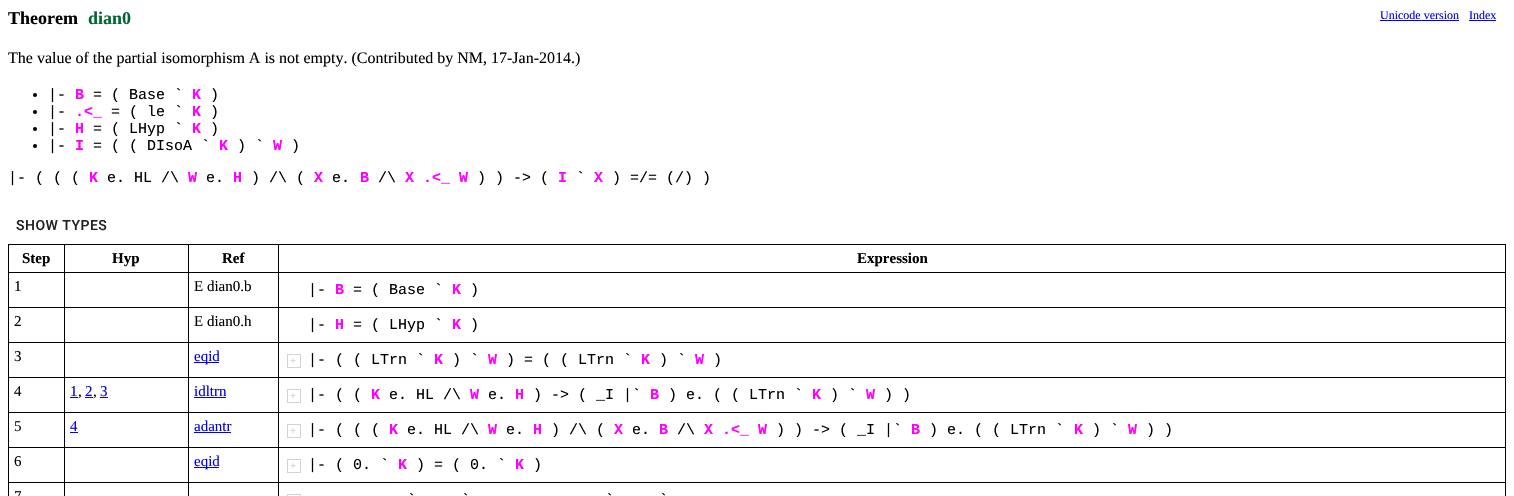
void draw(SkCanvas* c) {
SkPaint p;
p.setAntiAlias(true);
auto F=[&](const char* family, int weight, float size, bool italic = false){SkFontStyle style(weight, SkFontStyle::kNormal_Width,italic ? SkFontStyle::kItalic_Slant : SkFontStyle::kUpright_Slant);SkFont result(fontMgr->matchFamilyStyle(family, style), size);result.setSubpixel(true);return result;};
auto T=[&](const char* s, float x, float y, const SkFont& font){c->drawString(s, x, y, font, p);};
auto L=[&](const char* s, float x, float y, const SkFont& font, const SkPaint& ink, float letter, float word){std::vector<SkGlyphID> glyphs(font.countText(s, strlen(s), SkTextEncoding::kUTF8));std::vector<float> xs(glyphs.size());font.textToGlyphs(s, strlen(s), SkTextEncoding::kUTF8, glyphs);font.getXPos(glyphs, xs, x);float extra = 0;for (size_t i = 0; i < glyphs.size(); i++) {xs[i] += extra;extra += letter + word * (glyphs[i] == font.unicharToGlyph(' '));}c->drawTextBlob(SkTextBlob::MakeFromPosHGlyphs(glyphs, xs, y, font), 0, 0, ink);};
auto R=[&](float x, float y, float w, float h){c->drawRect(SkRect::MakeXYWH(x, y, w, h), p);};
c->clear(0xffffffff);
auto f1 = F("Liberation Serif",700,18);
p.setColor(0xff000000);
T("Theorem",8,24,f1);
p.setColor(0xff006633);
T("dian0",88,24,f1);
auto f2 = F("Liberation Serif",400,12);
p.setColor(0xff0000ee);
T("Unicode version",1380,19,f2);
R(1380,20,79,1);
T("Index",1469,19,f2);
R(1469,20,27,1);
auto f3 = F("Liberation Serif",400,16);
p.setColor(0xff000000);
T("The value of the partial isomorphism A is not empty. (Contributed by NM, 17-Jan-2014.)",8,63,f3);
c->drawCircle(35,95,2,p);
auto f4 = F("Liberation Mono",400,15);
T("|-",48,99,f4);
auto f5 = F("Liberation Mono",700,15);
p.setColor(0xffff00ff);
T("B",75,99,f5);
p.setColor(0xff000000);
T("= ( Base `",93,99,f4);
p.setColor(0xffff00ff);
T("K",192,99,f5);
p.setColor(0xff000000);
T(")",210,99,f4);
c->drawCircle(35,112,2,p);
T("|-",48,116,f4);
p.setColor(0xffff00ff);
T(".<_",75,116,f5);
p.setColor(0xff000000);
T("= ( le `",111,116,f4);
p.setColor(0xffff00ff);
T("K",192,116,f5);
p.setColor(0xff000000);
T(")",210,116,f4);
c->drawCircle(35,129,2,p);
T("|-",48,133,f4);
p.setColor(0xffff00ff);
T("H",75,133,f5);
p.setColor(0xff000000);
T("= ( LHyp `",93,133,f4);
p.setColor(0xffff00ff);
T("K",192,133,f5);
p.setColor(0xff000000);
T(")",210,133,f4);
c->drawCircle(35,146,2,p);
T("|-",48,150,f4);
p.setColor(0xffff00ff);
T("I",75,150,f5);
p.setColor(0xff000000);
T("= ( ( DIsoA `",93,150,f4);
p.setColor(0xffff00ff);
T("K",219,150,f5);
p.setColor(0xff000000);
T(") `",237,150,f4);
p.setColor(0xffff00ff);
T("W",273,150,f5);
p.setColor(0xff000000);
T(")",291,150,f4);
T("|- ( ( (",8,182,f4);
p.setColor(0xffff00ff);
T("K",89,182,f5);
p.setColor(0xff000000);
T("e. HL /\\",107,182,f4);
p.setColor(0xffff00ff);
T("W",188,182,f5);
p.setColor(0xff000000);
T("e.",206,182,f4);
p.setColor(0xffff00ff);
T("H",233,182,f5);
p.setColor(0xff000000);
T(") /\\ (",251,182,f4);
p.setColor(0xffff00ff);
T("X",314,182,f5);
p.setColor(0xff000000);
T("e.",332,182,f4);
p.setColor(0xffff00ff);
T("B",360,182,f5);
p.setColor(0xff000000);
T("/\\",378,182,f4);
p.setColor(0xffff00ff);
T("X .<_ W",405,182,f5);
p.setColor(0xff000000);
T(") ) -> (",477,182,f4);
p.setColor(0xffff00ff);
T("I",558,182,f5);
p.setColor(0xff000000);
T("`",576,182,f4);
p.setColor(0xffff00ff);
T("X",594,182,f5);
p.setColor(0xff000000);
T(") =/= (/) )",612,182,f4);
auto f6 = F("Roboto",500,14);
p.setColor(0xff212121);
L("SHOW TYPES",16,230,f6,p,.5,0);
p.setColor(0xff000000);
R(278,244,1228,1);
R(278,272,1228,1);
R(278,307,1228,1);
R(278,342,1228,1);
R(278,377,1228,1);
R(278,412,1228,1);
R(278,447,1228,1);
R(278,482,1228,1);
R(278,482,1,14);
R(188,482,91,1);
R(278,447,1,36);
R(188,447,91,1);
R(278,412,1,36);
R(188,412,91,1);
R(278,377,1,36);
R(188,377,91,1);
R(278,342,1,36);
R(188,342,91,1);
R(278,307,1,36);
R(188,307,91,1);
R(278,272,1,36);
R(188,272,91,1);
R(278,244,1,29);
R(188,244,91,1);
R(188,482,1,14);
R(64,482,125,1);
R(188,447,1,36);
R(64,447,125,1);
R(188,412,1,36);
R(64,412,125,1);
R(188,377,1,36);
R(64,377,125,1);
R(188,342,1,36);
R(64,342,125,1);
R(188,307,1,36);
R(64,307,125,1);
R(188,272,1,36);
R(64,272,125,1);
R(188,244,1,29);
R(64,244,125,1);
R(64,482,1,14);
R(8,482,57,1);
R(64,447,1,36);
R(8,447,57,1);
R(64,412,1,36);
R(8,412,57,1);
R(64,377,1,36);
R(8,377,57,1);
R(64,342,1,36);
R(8,342,57,1);
R(64,307,1,36);
R(8,307,57,1);
R(64,272,1,36);
R(8,272,57,1);
R(64,244,1,29);
R(8,244,57,1);
R(8,482,1,14);
R(8,447,1,36);
R(8,412,1,36);
R(8,377,1,36);
R(8,342,1,36);
R(8,307,1,36);
R(8,272,1,36);
R(8,244,1,29);
auto f7 = F("Liberation Serif",700,15);
T("Step",22,263,f7);
T("Hyp",112,263,f7);
T("Ref",222,263,f7);
R(1505,482,1,14);
R(1505,447,1,36);
R(1505,412,1,36);
R(1505,377,1,36);
R(1505,342,1,36);
R(1505,307,1,36);
R(1505,272,1,36);
R(1505,244,1,29);
T("Expression",857,263,f7);
auto f8 = F("Liberation Serif",400,15);
T("1",14,291,f8);
T("E dian0.b",194,291,f8);
T("|-",308,294,f4);
p.setColor(0xffff00ff);
T("B",335,294,f5);
p.setColor(0xff000000);
T("= ( Base `",353,294,f4);
p.setColor(0xffff00ff);
T("K",452,294,f5);
p.setColor(0xff000000);
T(")",470,294,f4);
T("2",14,326,f8);
T("E dian0.h",194,326,f8);
T("|-",308,329,f4);
p.setColor(0xffff00ff);
T("H",335,329,f5);
p.setColor(0xff000000);
T("= ( LHyp `",353,329,f4);
p.setColor(0xffff00ff);
T("K",452,329,f5);
p.setColor(0xff000000);
T(")",470,329,f4);
T("3",14,361,f8);
p.setColor(0xff0000ee);
R(194,362,25,1);
T("eqid",194,361,f8);
p.setStroke(true);
p.setStrokeWidth(1);
p.setColor(0xffd3d3d3);
c->drawRect(SkRect::MakeXYWH(287.5,354.5,13,13),p);
auto f9 = F("Liberation Mono",400,10);
p.setStroke(false);
T("+",290,364,f9);
p.setColor(0xff000000);
T("|- ( ( LTrn `",308,364,f4);
p.setColor(0xffff00ff);
T("K",434,364,f5);
p.setColor(0xff000000);
T(") `",452,364,f4);
p.setColor(0xffff00ff);
T("W",488,364,f5);
p.setColor(0xff000000);
T(") = ( ( LTrn `",506,364,f4);
p.setColor(0xffff00ff);
T("K",641,364,f5);
p.setColor(0xff000000);
T(") `",659,364,f4);
p.setColor(0xffff00ff);
T("W",695,364,f5);
p.setColor(0xff000000);
T(")",713,364,f4);
T("4",14,396,f8);
p.setColor(0xff0000ee);
T("1",70,396,f8);
R(70,397,8,1);
p.setColor(0xff000000);
T(",",78,396,f8);
p.setColor(0xff0000ee);
T("2",85,396,f8);
R(85,397,8,1);
p.setColor(0xff000000);
T(",",93,396,f8);
p.setColor(0xff0000ee);
T("3",100,396,f8);
R(100,397,8,1);
T("idltrn",194,396,f8);
R(194,397,32,1);
p.setStroke(true);
p.setColor(0xffd3d3d3);
c->drawRect(SkRect::MakeXYWH(287.5,389.5,13,13),p);
p.setStroke(false);
T("+",290,399,f9);
p.setColor(0xff000000);
T("|- ( (",308,399,f4);
p.setColor(0xffff00ff);
T("K",371,399,f5);
p.setColor(0xff000000);
T("e. HL /\\",389,399,f4);
p.setColor(0xffff00ff);
T("W",470,399,f5);
p.setColor(0xff000000);
T("e.",488,399,f4);
p.setColor(0xffff00ff);
T("H",515,399,f5);
p.setColor(0xff000000);
T(") -> ( _I |`",533,399,f4);
p.setColor(0xffff00ff);
T("B",650,399,f5);
p.setColor(0xff000000);
T(") e. ( ( LTrn `",668,399,f4);
p.setColor(0xffff00ff);
T("K",812,399,f5);
p.setColor(0xff000000);
T(") `",830,399,f4);
p.setColor(0xffff00ff);
T("W",866,399,f5);
p.setColor(0xff000000);
T(") )",884,399,f4);
T("5",14,431,f8);
p.setColor(0xff0000ee);
T("4",70,431,f8);
R(70,432,8,1);
T("adantr",194,431,f8);
R(194,432,37,1);
p.setStroke(true);
p.setColor(0xffd3d3d3);
c->drawRect(SkRect::MakeXYWH(287.5,424.5,13,13),p);
p.setStroke(false);
T("+",290,434,f9);
p.setColor(0xff000000);
T("|- ( ( (",308,434,f4);
p.setColor(0xffff00ff);
T("K",389,434,f5);
p.setColor(0xff000000);
T("e. HL /\\",407,434,f4);
p.setColor(0xffff00ff);
T("W",488,434,f5);
p.setColor(0xff000000);
T("e.",506,434,f4);
p.setColor(0xffff00ff);
T("H",533,434,f5);
p.setColor(0xff000000);
T(") /\\ (",551,434,f4);
p.setColor(0xffff00ff);
T("X",614,434,f5);
p.setColor(0xff000000);
T("e.",632,434,f4);
p.setColor(0xffff00ff);
T("B",659,434,f5);
p.setColor(0xff000000);
T("/\\",677,434,f4);
p.setColor(0xffff00ff);
T("X .<_ W",704,434,f5);
p.setColor(0xff000000);
T(") ) -> ( _I |`",776,434,f4);
p.setColor(0xffff00ff);
T("B",911,434,f5);
p.setColor(0xff000000);
T(") e. ( ( LTrn `",929,434,f4);
p.setColor(0xffff00ff);
T("K",1074,434,f5);
p.setColor(0xff000000);
T(") `",1092,434,f4);
p.setColor(0xffff00ff);
T("W",1128,434,f5);
p.setColor(0xff000000);
T(") )",1146,434,f4);
T("6",14,466,f8);
p.setColor(0xff0000ee);
R(194,467,25,1);
T("eqid",194,466,f8);
p.setStroke(true);
p.setColor(0xffd3d3d3);
c->drawRect(SkRect::MakeXYWH(287.5,459.5,13,13),p);
p.setStroke(false);
T("+",290,469,f9);
p.setColor(0xff000000);
T("|- ( 0. `",308,469,f4);
p.setColor(0xffff00ff);
T("K",398,469,f5);
p.setColor(0xff000000);
T(") = ( 0. `",416,469,f4);
p.setColor(0xffff00ff);
T("K",515,469,f5);
p.setColor(0xff000000);
T(")",533,469,f4);
T("7",14,501,f8);
p.setStroke(true);
p.setColor(0xffd3d3d3);
c->drawRect(SkRect::MakeXYWH(287.5,494.5,13,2),p);
p.setStroke(false);
p.setColor(0xff000000);
T("`",407,504,f4);
T("`",461,504,f4);
T("`",605,504,f4);
T("`",659,504,f4);
}
